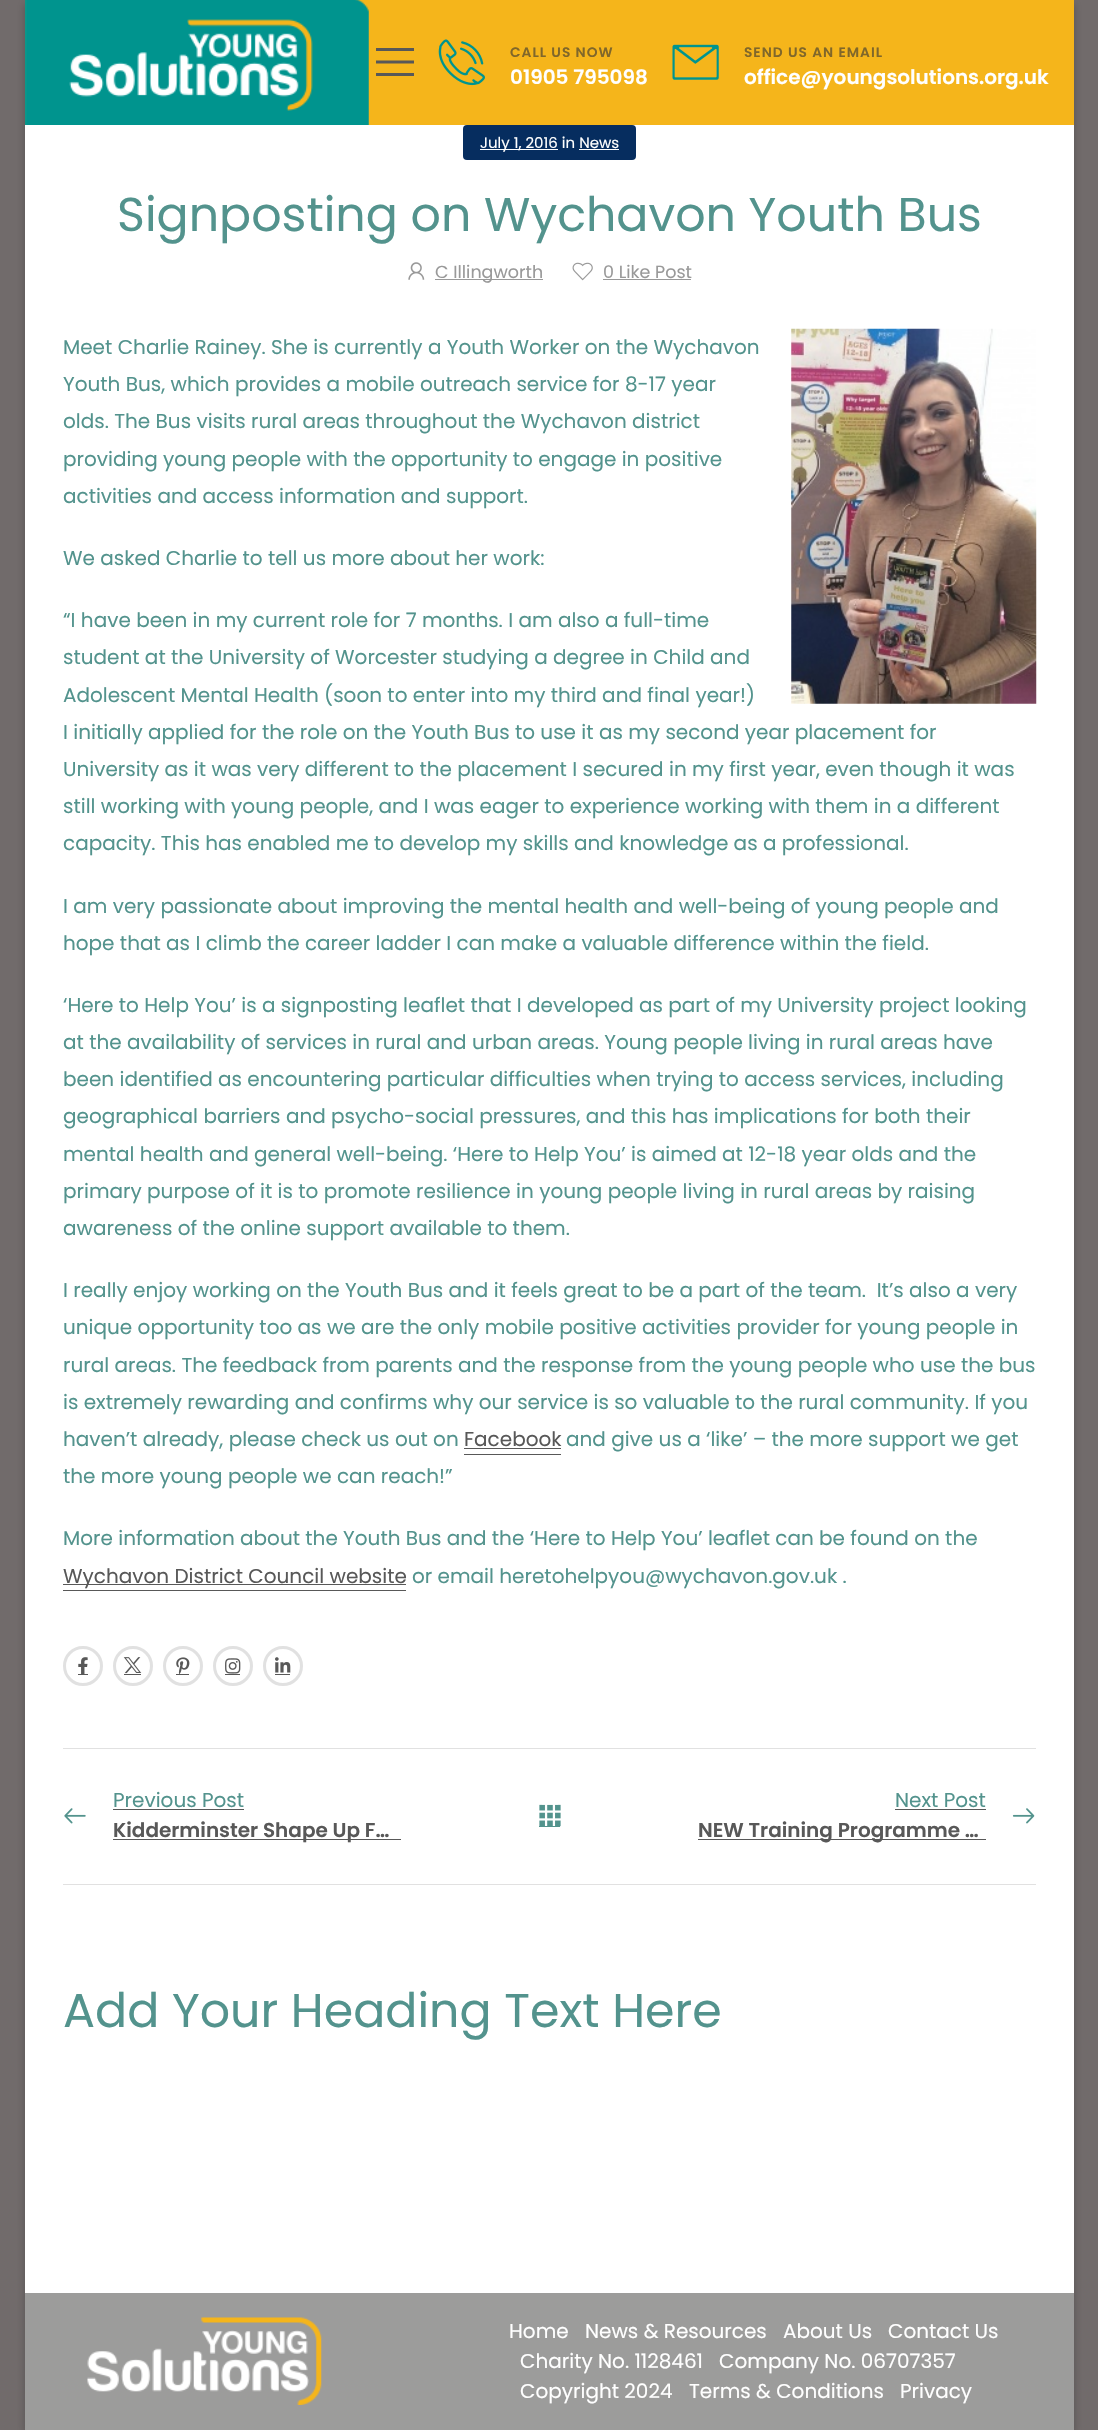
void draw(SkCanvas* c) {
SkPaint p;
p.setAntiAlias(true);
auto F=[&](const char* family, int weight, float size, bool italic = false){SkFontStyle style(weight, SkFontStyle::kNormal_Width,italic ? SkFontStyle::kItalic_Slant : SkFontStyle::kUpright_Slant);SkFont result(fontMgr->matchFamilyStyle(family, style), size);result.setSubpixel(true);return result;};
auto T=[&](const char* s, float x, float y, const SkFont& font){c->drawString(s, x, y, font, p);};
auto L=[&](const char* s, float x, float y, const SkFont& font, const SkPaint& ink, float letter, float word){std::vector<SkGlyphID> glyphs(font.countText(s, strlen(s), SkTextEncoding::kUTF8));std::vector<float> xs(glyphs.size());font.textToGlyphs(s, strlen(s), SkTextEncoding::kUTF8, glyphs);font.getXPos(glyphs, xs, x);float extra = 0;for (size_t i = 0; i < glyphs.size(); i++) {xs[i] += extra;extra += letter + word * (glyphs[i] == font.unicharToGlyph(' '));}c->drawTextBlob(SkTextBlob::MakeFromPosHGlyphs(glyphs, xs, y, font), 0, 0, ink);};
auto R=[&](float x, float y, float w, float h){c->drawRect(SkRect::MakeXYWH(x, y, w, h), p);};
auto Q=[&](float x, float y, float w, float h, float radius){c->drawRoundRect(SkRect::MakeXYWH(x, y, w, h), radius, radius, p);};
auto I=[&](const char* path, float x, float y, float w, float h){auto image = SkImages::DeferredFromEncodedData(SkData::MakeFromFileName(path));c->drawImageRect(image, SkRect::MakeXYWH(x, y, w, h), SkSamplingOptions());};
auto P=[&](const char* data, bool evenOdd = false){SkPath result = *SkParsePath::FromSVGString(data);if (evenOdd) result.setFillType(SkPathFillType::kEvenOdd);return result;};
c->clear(0xff716b6b);
p.setColor(0x3b000000);
p.setMaskFilter(SkMaskFilter::MakeBlur(kNormal_SkBlurStyle, 4));
c->drawRect(SkRect::MakeXYWH(25,4,1049,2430),p);
p.setMaskFilter(nullptr);
p.setColor(0xffffffff);
R(25,125,1049,2168);
p.setColor(0xfff5b51b);
R(25,0,1049,125);
I("1.png",25,0,344,125);
p.setColor(0xff585858);
c->drawPath(P("M376 48v3h38v-3zm0 12.5v3h38v-3zm0 12.5v3h38v-3z"),p);
I("2.png",438,39,47,47);
auto f1 = F("Poppins",600,13.75);
p.setColor(0xff80672a);
L("CALL US NOW",510,57,f1,p,1,0);
auto f2 = F("Poppins",600,20);
p.setColor(0xffffffff);
T("01905 795098",510,84,f2);
I("3.png",672,44,47,36);
p.setColor(0xff80672a);
L("SEND US AN EMAIL",744,57,f1,p,1,0);
p.setColor(0xffffffff);
T("office@youngsolutions.org.uk",744,84,f2);
p.setColor(0xff062d5f);
Q(463,125,173,35,4);
p.setColor(0xffffffff);
R(480,149,78,1);
auto f3 = F("Poppins",400,15);
T("July 1, 2016 in News",480,148,f3);
R(579,149,40,1);
auto f4 = F("Poppins",400,47.5);
p.setColor(0xff53938d);
T("Signposting on Wychavon Youth Bus",117,231,f4);
I("4.png",408,262,17,18);
p.setColor(0xff999999);
R(435,279,108,1);
auto f5 = F("Poppins",400,17.5);
T("C Illingworth",435,278,f5);
I("5.png",572,262,21,19);
T("0 Like Post",603,278,f5);
R(603,279,88,1);
auto f6 = F("Poppins",400,20);
p.setColor(0xff53938d);
T("Meet Charlie Rainey. She is currently a Youth Worker on the Wychavon",63,354,f6);
I("6.png",791,328,246,376);
T("Youth Bus, which provides a mobile outreach service for 8-17 year",63,391,f6);
T("olds. The Bus visits rural areas throughout the Wychavon district",63,428,f6);
T("providing young people with the opportunity to engage in positive",63,466,f6);
T("activities and access information and support.",63,503,f6);
T("We asked Charlie to tell us more about her work:",63,565,f6);
T("“I have been in my current role for 7 months. I am also a full-time",63,627,f6);
T("student at the University of Worcester studying a degree in Child and",63,664,f6);
T("Adolescent Mental Health (soon to enter into my third and final year!)",63,702,f6);
T("I initially applied for the role on the Youth Bus to use it as my second year placement for",63,739,f6);
T("University as it was very different to the placement I secured in my first year, even though it was",63,776,f6);
T("still working with young people, and I was eager to experience working with them in a different",63,813,f6);
T("capacity. This has enabled me to develop my skills and knowledge as a professional.",63,850,f6);
T("I am very passionate about improving the mental health and well-being of young people and",63,913,f6);
T("hope that as I climb the career ladder I can make a valuable difference within the field.",63,950,f6);
T("‘Here to Help You’ is a signposting leaflet that I developed as part of my University project looking",63,1012,f6);
T("at the availability of services in rural and urban areas. Young people living in rural areas have",63,1049,f6);
T("been identified as encountering particular difficulties when trying to access services, including",63,1086,f6);
T("geographical barriers and psycho-social pressures, and this has implications for both their",63,1123,f6);
T("mental health and general well-being. ‘Here to Help You’ is aimed at 12-18 year olds and the",63,1161,f6);
T("primary purpose of it is to promote resilience in young people living in rural areas by raising",63,1198,f6);
T("awareness of the online support available to them.",63,1235,f6);
T("I really enjoy working on the Youth Bus and it feels great to be a part of the team.  It’s also a very",63,1297,f6);
T("unique opportunity too as we are the only mobile positive activities provider for young people in",63,1334,f6);
T("rural areas. The feedback from parents and the response from the young people who use the bus",63,1372,f6);
T("is extremely rewarding and confirms why our service is so valuable to the rural community. If you",63,1409,f6);
T("haven’t already, please check us out on",63,1446,f6);
p.setColor(0xff585858);
T("Facebook",464,1446,f6);
R(464,1454,97,1);
R(464,1448,97,1);
p.setColor(0xff53938d);
T("and give us a ‘like’ – the more support we get",566,1446,f6);
T("the more young people we can reach!”",63,1483,f6);
T("More information about the Youth Bus and the ‘Here to Help You’ leaflet can be found on the",63,1545,f6);
p.setColor(0xff585858);
R(63,1584,343,1);
T("Wychavon District Council website",63,1583,f6);
R(63,1590,343,1);
p.setColor(0xff53938d);
T("or email heretohelpyou@wychavon.gov.uk .",412,1583,f6);
p.setStroke(true);
p.setStrokeWidth(3);
p.setColor(0xffe1e1e1);
c->drawCircle(83,1666,18.5,p);
I("7.png",78,1657,10,17);
p.setStroke(false);
p.setColor(0xff585858);
R(78,1674,10,1);
p.setStroke(true);
p.setColor(0xffe1e1e1);
c->drawCircle(133,1666,18.5,p);
I("8.png",123,1657,19,17);
p.setStroke(false);
p.setColor(0xff585858);
R(124,1674,17,1);
p.setStroke(true);
p.setColor(0xffe1e1e1);
c->drawCircle(183,1666,18.5,p);
I("9.png",176,1657,14,17);
p.setStroke(false);
p.setColor(0xff585858);
R(176,1674,13,1);
p.setStroke(true);
p.setColor(0xffe1e1e1);
c->drawCircle(233,1666,18.5,p);
I("10.png",225,1658,16,16);
p.setStroke(false);
p.setColor(0xff585858);
R(225,1674,15,1);
p.setStroke(true);
p.setColor(0xffe1e1e1);
c->drawCircle(283,1666,18.5,p);
I("11.png",275,1657,16,16);
p.setStroke(false);
p.setColor(0xff585858);
R(275,1674,15,1);
p.setColor(0xffe1e1e1);
R(63,1748,973,1);
p.setColor(0xff53938d);
T("Previous Post",113,1807,f6);
p.setColor(0xff585858);
R(113,1809,131,1);
I("12.png",64,1808,22,16);
R(113,1839,288,1);
T("Kidderminster Shape Up F…",113,1837,f2);
p.setColor(0xff53938d);
T("Next Post",895,1807,f6);
p.setColor(0xff585858);
R(895,1809,91,1);
I("13.png",1012,1808,23,16);
R(698,1839,288,1);
T("NEW Training Programme …",698,1837,f2);
p.setColor(0xff53938d);
R(539,1826,21,1);
I("14.png",539,1804,22,23);
p.setColor(0xffe1e1e1);
R(63,1884,973,1);
p.setColor(0xff53938d);
T("Add Your Heading Text Here",63,2027,f4);
p.setColor(0xff9c9c9b);
R(25,2293,1049,137);
I("15.png",87,2317,235,88);
p.setColor(0xffffffff);
T("Home",509,2338,f6);
T("News & Resources",585,2338,f6);
T("About Us",783,2338,f6);
T("Contact Us",888,2338,f6);
T("Charity No. 1128461   Company No. 06707357",520,2368,f6);
T("Copyright 2024",520,2398,f6);
T("Terms & Conditions",689,2398,f6);
T("Privacy",900,2398,f6);
}
